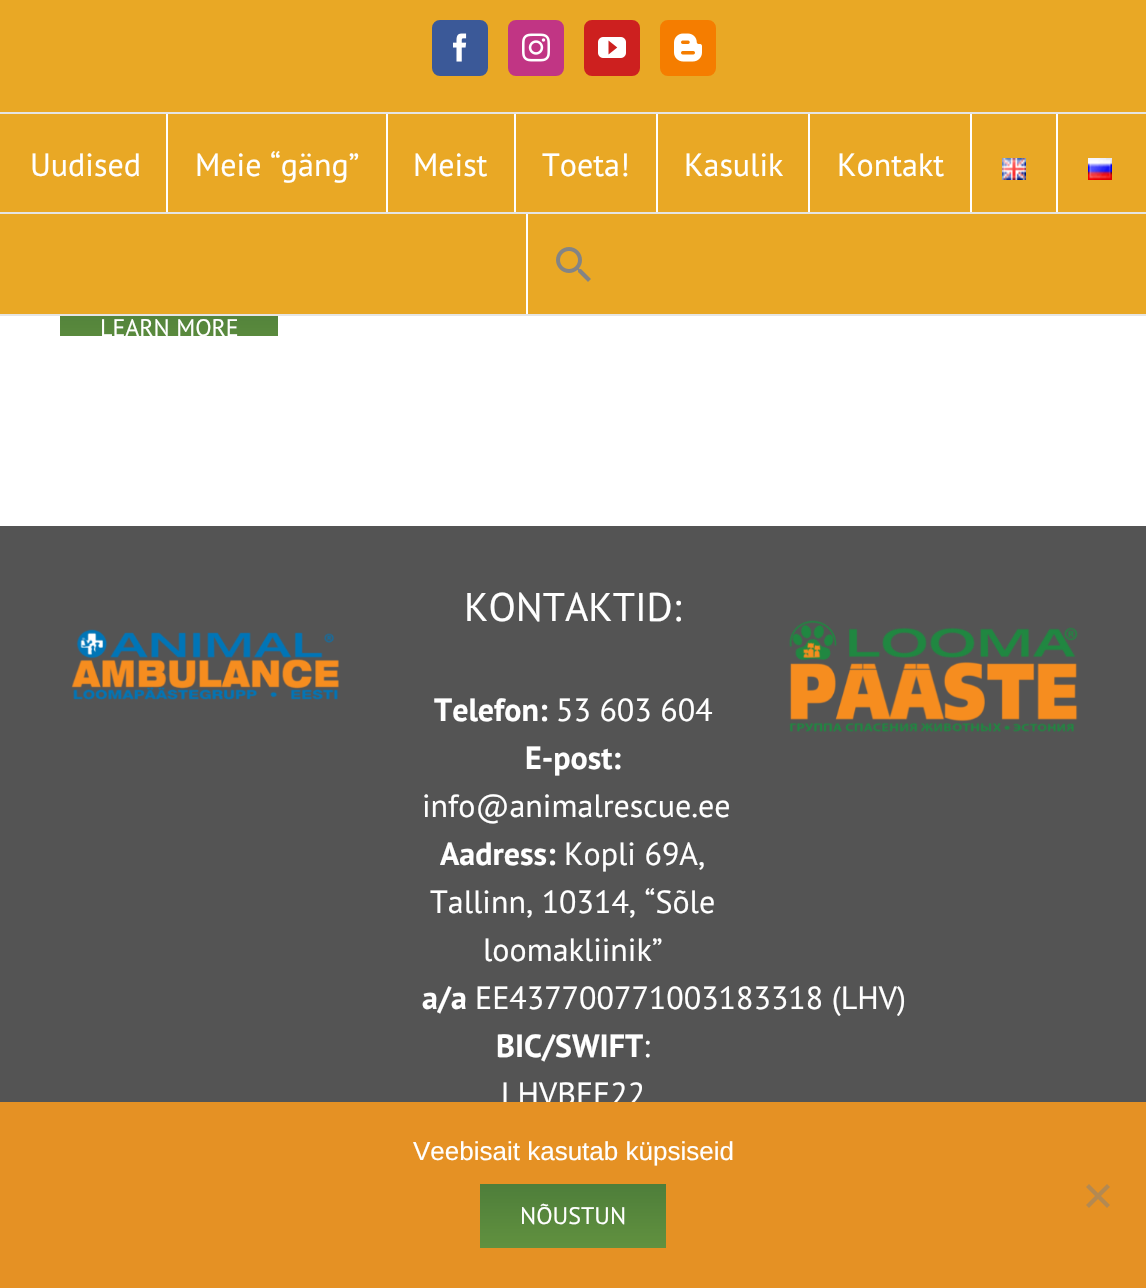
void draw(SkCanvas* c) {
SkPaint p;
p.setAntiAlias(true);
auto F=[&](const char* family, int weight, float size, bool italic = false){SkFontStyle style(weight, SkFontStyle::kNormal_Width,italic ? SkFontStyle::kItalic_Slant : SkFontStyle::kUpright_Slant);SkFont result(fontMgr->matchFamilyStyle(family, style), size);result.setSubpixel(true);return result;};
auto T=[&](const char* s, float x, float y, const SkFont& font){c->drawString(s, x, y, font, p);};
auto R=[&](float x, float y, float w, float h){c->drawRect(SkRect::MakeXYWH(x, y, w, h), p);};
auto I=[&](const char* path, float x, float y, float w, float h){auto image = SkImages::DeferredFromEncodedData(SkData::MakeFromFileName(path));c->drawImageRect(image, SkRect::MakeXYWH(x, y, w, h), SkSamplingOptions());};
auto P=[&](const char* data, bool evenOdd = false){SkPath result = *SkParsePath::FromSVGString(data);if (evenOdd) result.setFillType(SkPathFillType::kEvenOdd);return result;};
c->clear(0xffffffff);
p.setColor(0xffe9a825);
R(0,0,1146,314);
p.setColor(0xffe5e5e5);
R(0,314,1146,2);
R(0,112,1146,2);
p.setColor(0xff3b5998);
c->drawRoundRect(SkRect::MakeXYWH(433,21,54,54),7,7,p);
p.setStroke(true);
p.setStrokeWidth(2);
c->drawRoundRect(SkRect::MakeXYWH(433,21,54,54),7,7,p);
I("1.png",453,33,14,29);
p.setStroke(false);
p.setColor(0xffc13584);
c->drawRoundRect(SkRect::MakeXYWH(509,21,54,54),7,7,p);
p.setStroke(true);
c->drawRoundRect(SkRect::MakeXYWH(509,21,54,54),7,7,p);
I("2.png",522,33,28,29);
p.setStroke(false);
p.setColor(0xffcd201f);
c->drawRoundRect(SkRect::MakeXYWH(585,21,54,54),7,7,p);
p.setStroke(true);
c->drawRoundRect(SkRect::MakeXYWH(585,21,54,54),7,7,p);
I("3.png",598,37,28,21);
p.setStroke(false);
p.setColor(0xfff57d00);
c->drawRoundRect(SkRect::MakeXYWH(661,21,54,54),7,7,p);
p.setStroke(true);
c->drawRoundRect(SkRect::MakeXYWH(661,21,54,54),7,7,p);
I("4.png",674,33,28,29);
auto f1 = F("PT Sans",400,32);
p.setStroke(false);
p.setColor(0xffffffff);
T("Uudised",30,176,f1);
R(166,114,2,100);
T("Meie “gäng”",195,176,f1);
R(386,114,2,100);
T("Meist",413,176,f1);
R(514,114,2,100);
T("Toeta!",542,176,f1);
R(656,114,2,100);
T("Kasulik",684,176,f1);
R(808,114,2,100);
T("Kontakt",837,176,f1);
R(970,114,2,100);
I("5.png",1002,158,24,22);
R(1056,114,2,100);
I("6.png",1088,158,24,22);
p.setColor(0xffe5e5e5);
R(0,212,1146,2);
p.setColor(0xffffffff);
R(526,214,2,100);
I("7.png",556,247,35,35);
{
const SkColor colors[] = {0xff4e7e3a,0xff61913f};
const float stops[] = {0,1};
const SkPoint ends[] = {{169,296}, {169,360}};
p.setShader(SkGradientShader::MakeLinear(ends, colors, stops, 2, SkTileMode::kClamp));
p.setAlpha(255);
}
R(60,316,218,20);
c->save();
c->clipRect(SkRect::MakeXYWH(60,0,1002,336));
auto f2 = F("PT Sans",400,24);
p.setShader(nullptr);
p.setColor(0xffffffff);
T("LEARN MORE",100,336,f2);
c->restore();
p.setColor(0xff545454);
R(0,526,1146,576);
I("8.png",71,629,268,71);
auto f3 = F("PT Sans",400,40);
p.setColor(0xffffffff);
T("KONTAKTID:",464,621,f3);
auto f4 = F("PT Sans",700,32);
T("Telefon:",434,721,f4);
T("53 603 604",556,721,f1);
T("E-post:",525,769,f4);
T("info@animalrescue.ee",422,817,f1);
T("Aadress:",440,865,f4);
T("Kopli 69A,",564,865,f1);
T("Tallinn, 10314, “Sõle",430,913,f1);
T("loomakliinik”",483,961,f1);
T("a/a",422,1009,f4);
T("EE437700771003183318 (LHV)",475,1009,f1);
T("BIC/SWIFT",496,1057,f4);
T(":",643,1057,f1);
T("LHVBEE22",501,1105,f1);
I("9.png",789,620,289,112);
p.setColor(0xffe59124);
R(0,1102,1146,186);
auto f5 = F("Liberation Sans",400,26);
p.setColor(0xffffffff);
T("Veebisait kasutab küpsiseid",413,1160,f5);
p.setColor(0xffb38952);
c->drawPath(P("M1107 1184l3 3l-21 21l-3-3z"),p);
c->drawPath(P("M1086 1187l3-3l21 21l-3 3z"),p);
{
const SkColor colors[] = {0xff4e7e3a,0xff61913f};
const float stops[] = {0,1};
const SkPoint ends[] = {{573,1184}, {573,1248}};
p.setShader(SkGradientShader::MakeLinear(ends, colors, stops, 2, SkTileMode::kClamp));
p.setAlpha(255);
}
R(480,1184,186,64);
p.setShader(nullptr);
p.setColor(0xffffffff);
T("NÕUSTUN",520,1224,f2);
}
